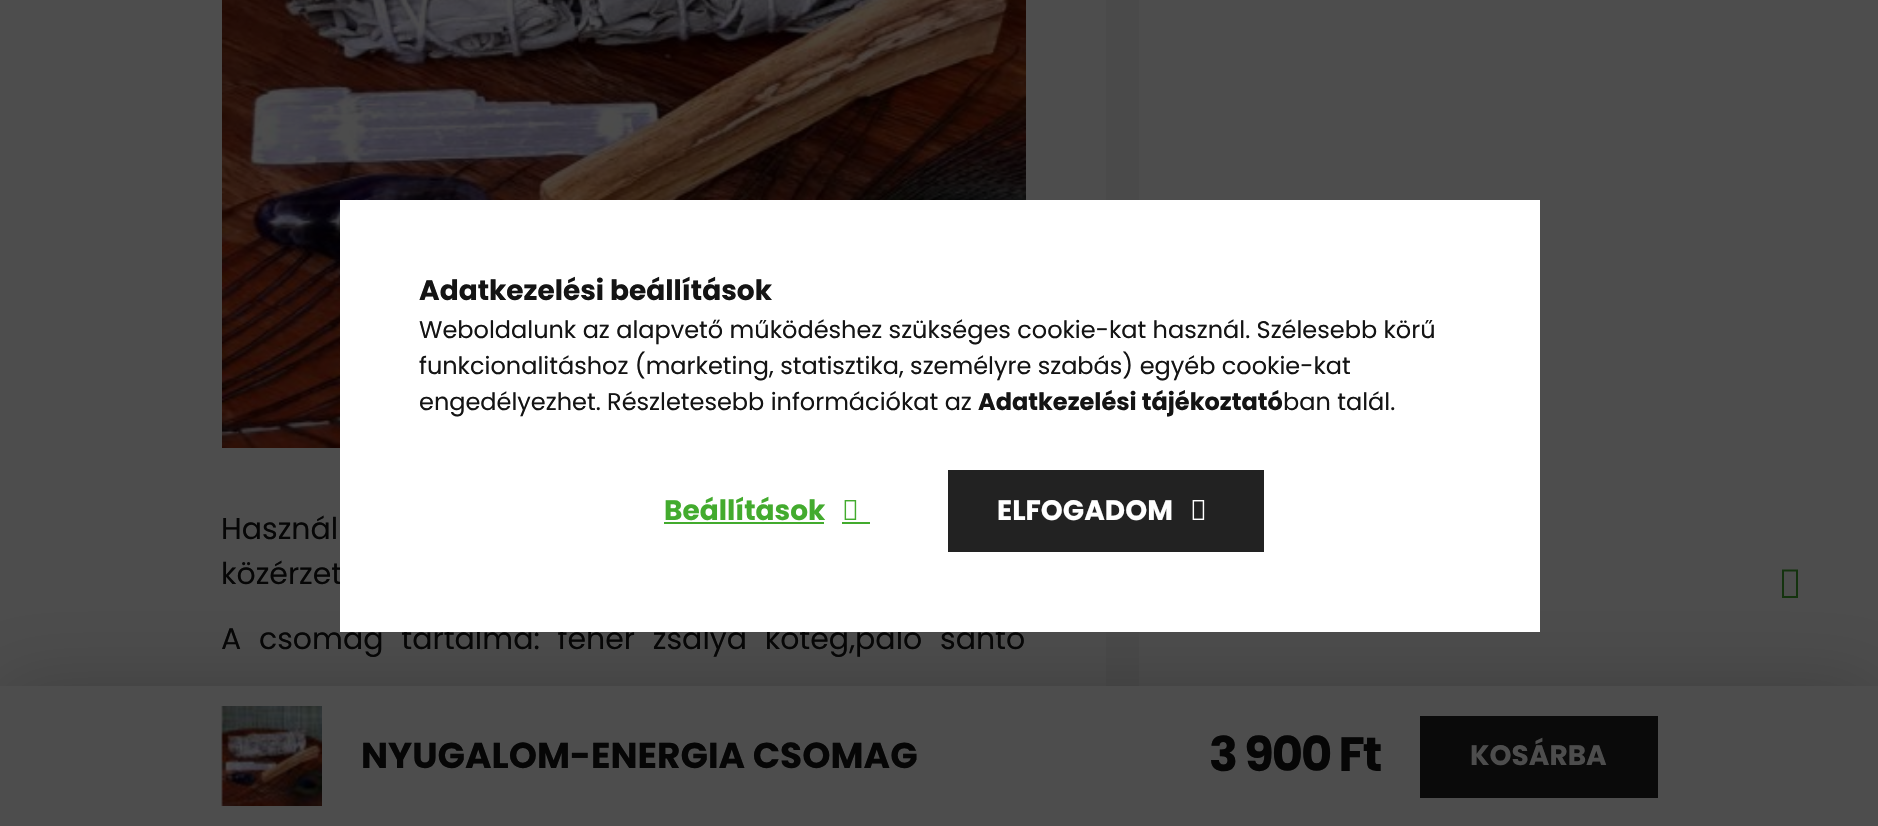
void draw(SkCanvas* c) {
SkPaint p;
p.setAntiAlias(true);
auto F=[&](const char* family, int weight, float size, bool italic = false){SkFontStyle style(weight, SkFontStyle::kNormal_Width,italic ? SkFontStyle::kItalic_Slant : SkFontStyle::kUpright_Slant);SkFont result(fontMgr->matchFamilyStyle(family, style), size);result.setSubpixel(true);return result;};
auto T=[&](const char* s, float x, float y, const SkFont& font){c->drawString(s, x, y, font, p);};
auto L=[&](const char* s, float x, float y, const SkFont& font, const SkPaint& ink, float letter, float word){std::vector<SkGlyphID> glyphs(font.countText(s, strlen(s), SkTextEncoding::kUTF8));std::vector<float> xs(glyphs.size());font.textToGlyphs(s, strlen(s), SkTextEncoding::kUTF8, glyphs);font.getXPos(glyphs, xs, x);float extra = 0;for (size_t i = 0; i < glyphs.size(); i++) {xs[i] += extra;extra += letter + word * (glyphs[i] == font.unicharToGlyph(' '));}c->drawTextBlob(SkTextBlob::MakeFromPosHGlyphs(glyphs, xs, y, font), 0, 0, ink);};
auto R=[&](float x, float y, float w, float h){c->drawRect(SkRect::MakeXYWH(x, y, w, h), p);};
auto I=[&](const char* path, float x, float y, float w, float h){auto image = SkImages::DeferredFromEncodedData(SkData::MakeFromFileName(path));c->drawImageRect(image, SkRect::MakeXYWH(x, y, w, h), SkSamplingOptions());};
auto P=[&](const char* data, bool evenOdd = false){SkPath result = *SkParsePath::FromSVGString(data);if (evenOdd) result.setFillType(SkPathFillType::kEvenOdd);return result;};
c->clear(0xff4d4d4d);
I("3.png",222,0,804,448);
auto f1 = F("Poppins",400,30);
p.setColor(0xff060606);
T("közérzet",221,584,f1);
L("A csomag tartalma: fehér zsálya köteg,palo santo",221,649,f1,p,0,9.75);
{
const SkColor colors[] = {0xff4a4a4a,0xff4d4d4d,0xff4d4d4d};
const float stops[] = {0,.36,1};
const SkPoint ends[] = {{1106,161}, {1656,161}};
p.setShader(SkGradientShader::MakeLinear(ends, colors, stops, 3, SkTileMode::kClamp));
p.setAlpha(255);
}
R(1106,0,33,686);
p.setShader(nullptr);
p.setColor(0x33000000);
p.setMaskFilter(SkMaskFilter::MakeBlur(kNormal_SkBlurStyle, 40));
c->drawRect(SkRect::MakeXYWH(0,686,1878,140),p);
p.setMaskFilter(nullptr);
p.setColor(0xffffffff);
R(340,200,1200,432);
auto f2 = F("Poppins",700,28);
p.setColor(0xff141414);
T("Adatkezelési beállítások",419,300,f2);
auto f3 = F("Poppins",400,24);
T("Weboldalunk az alapvető működéshez szükséges cookie-kat használ. Szélesebb körű",419,338,f3);
T("funkcionalitáshoz (marketing, statisztika, személyre szabás) egyéb cookie-kat",419,374,f3);
T("engedélyezhet. Részletesebb információkat az",419,410,f3);
auto f4 = F("Poppins",700,24);
T("Adatkezelési tájékoztató",978,410,f4);
T("ban talál.",1283,410,f3);
p.setColor(0xff43ab2e);
T("Beállítások",664,520,f2);
R(664,522,160,2);
I("1.png",844,500,13,20);
R(842,522,28,2);
{
const SkColor colors[] = {0xff43ab2e,0xff4d3f49,0xff222222,0xff222222};
const float stops[] = {0,.33,.67,1};
const SkPoint ends[] = {{316,511}, {1264,511}};
p.setShader(SkGradientShader::MakeLinear(ends, colors, stops, 4, SkTileMode::kClamp));
p.setAlpha(255);
}
R(948,470,316,82);
p.setShader(nullptr);
p.setColor(0xffffffff);
T("ELFOGADOM",997,520,f2);
I("2.png",1192,500,13,20);
p.setColor(0xff060606);
L("Használ",221,539,f1,p,0,20);
p.setColor(0xff4d4d4d);
R(0,686,1878,140);
I("4.png",221,706,101,100);
auto f5 = F("Poppins",700,36);
p.setColor(0xff060606);
T("NYUGALOM-ENERGIA CSOMAG",361,768,f5);
auto f6 = F("Poppins",700,48);
L("3 900 Ft",1209,771,f6,p,-2,0);
{
const SkColor colors[] = {0xff14330e,0xff171316,0xff0a0a0a,0xff0a0a0a};
const float stops[] = {0,.33,.67,1};
const SkPoint ends[] = {{944,757}, {1658,757}};
p.setShader(SkGradientShader::MakeLinear(ends, colors, stops, 4, SkTileMode::kClamp));
p.setAlpha(255);
}
R(1420,716,238,82);
p.setShader(nullptr);
p.setColor(0xff4d4d4d);
T("KOSÁRBA",1470,765,f2);
p.setColor(0xff14330e);
c->drawPath(P("M1782 598v-28.5h16v28.5zm2-2h12v-24.5h-12z"),p);
}
